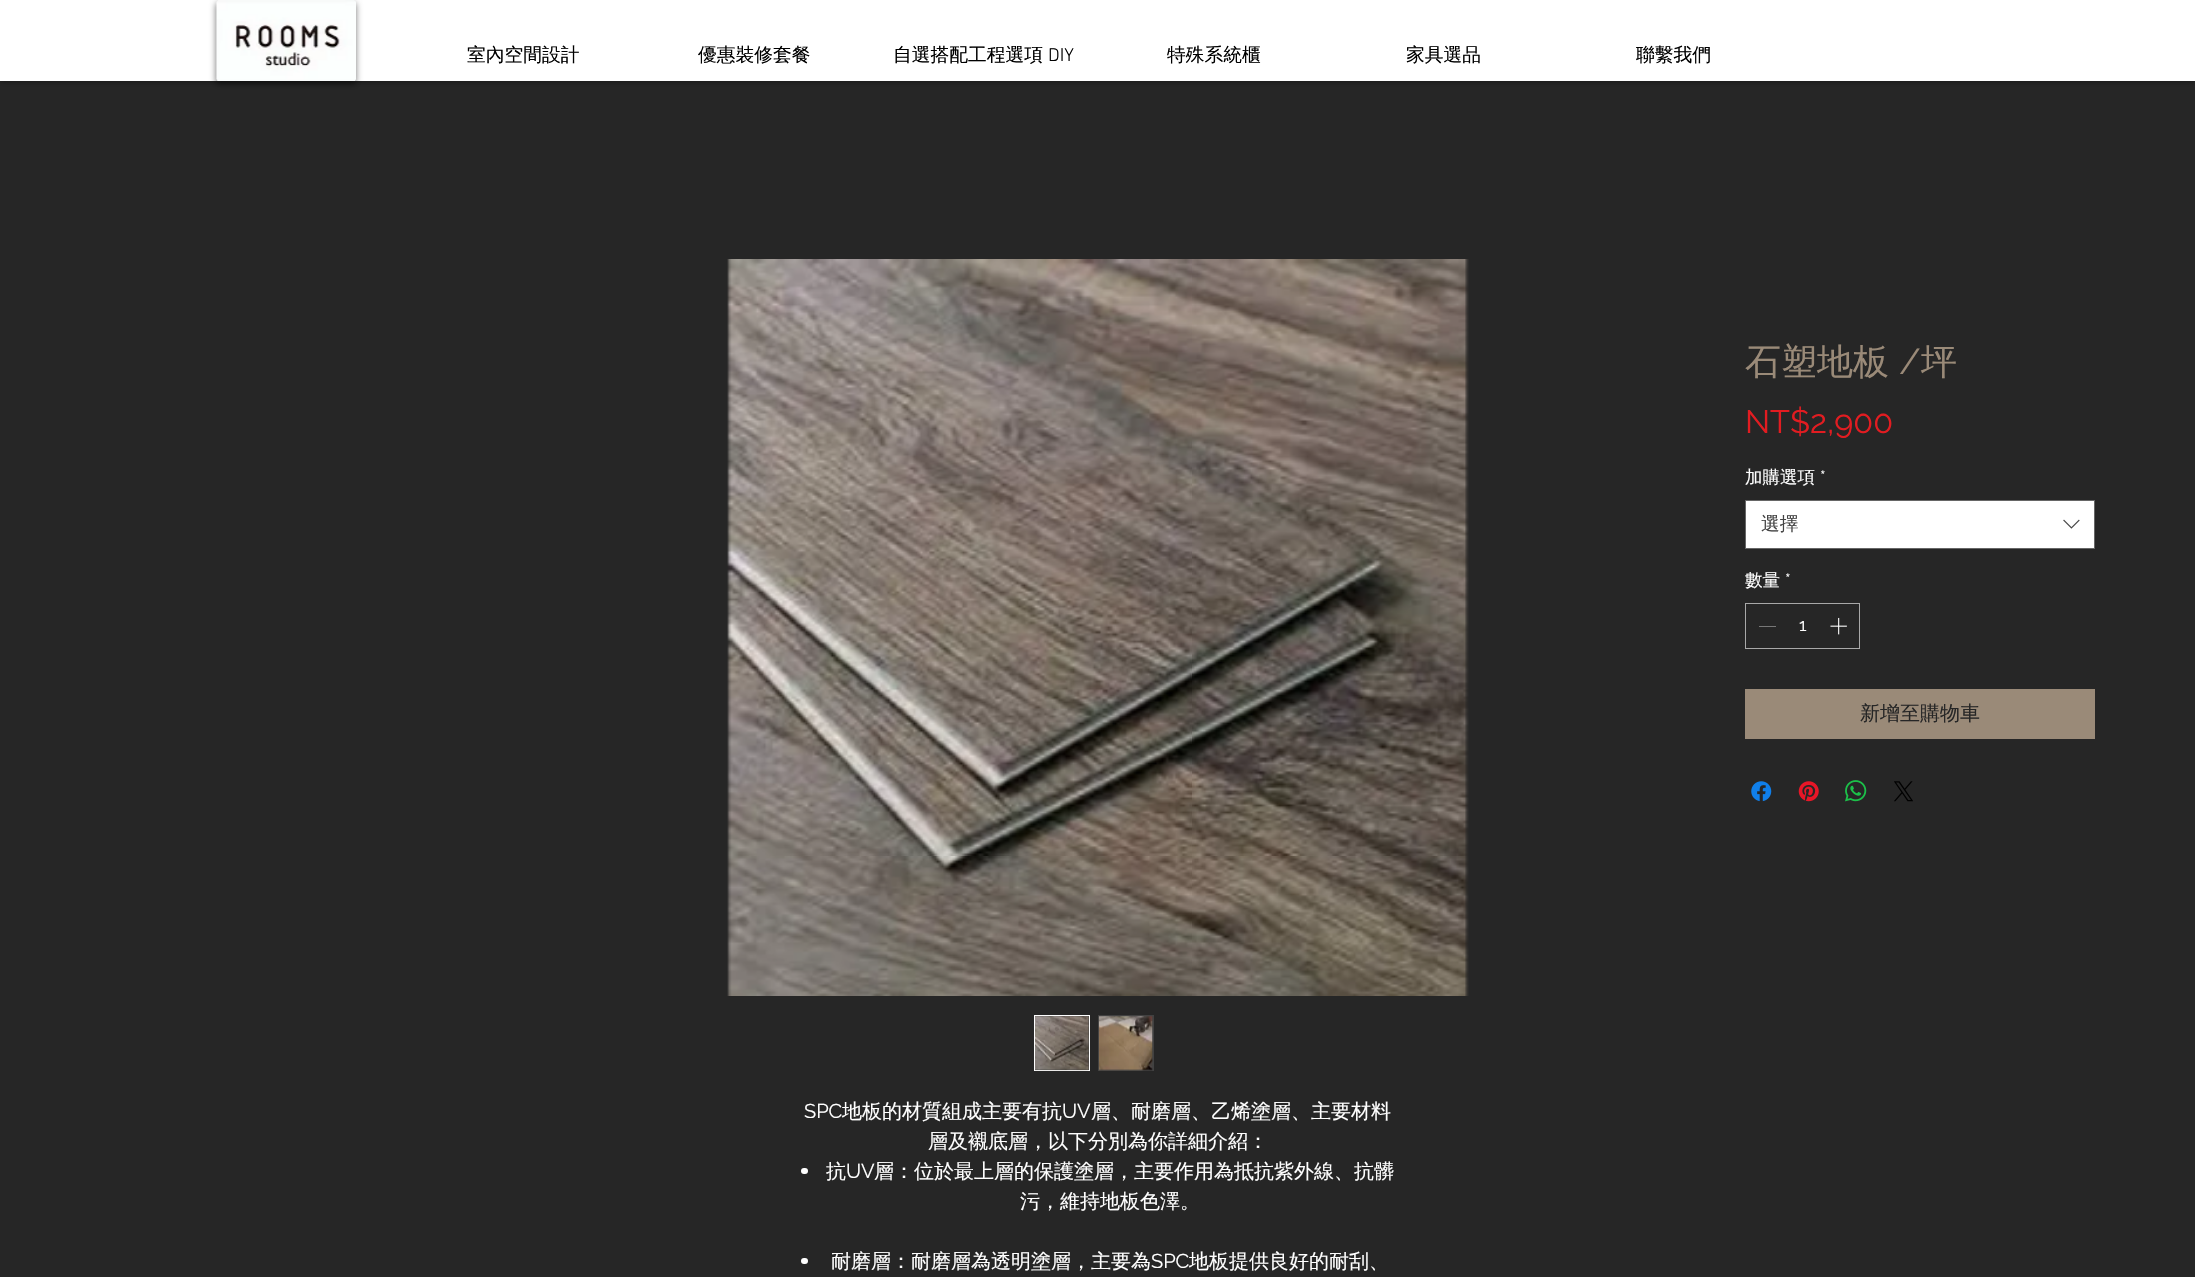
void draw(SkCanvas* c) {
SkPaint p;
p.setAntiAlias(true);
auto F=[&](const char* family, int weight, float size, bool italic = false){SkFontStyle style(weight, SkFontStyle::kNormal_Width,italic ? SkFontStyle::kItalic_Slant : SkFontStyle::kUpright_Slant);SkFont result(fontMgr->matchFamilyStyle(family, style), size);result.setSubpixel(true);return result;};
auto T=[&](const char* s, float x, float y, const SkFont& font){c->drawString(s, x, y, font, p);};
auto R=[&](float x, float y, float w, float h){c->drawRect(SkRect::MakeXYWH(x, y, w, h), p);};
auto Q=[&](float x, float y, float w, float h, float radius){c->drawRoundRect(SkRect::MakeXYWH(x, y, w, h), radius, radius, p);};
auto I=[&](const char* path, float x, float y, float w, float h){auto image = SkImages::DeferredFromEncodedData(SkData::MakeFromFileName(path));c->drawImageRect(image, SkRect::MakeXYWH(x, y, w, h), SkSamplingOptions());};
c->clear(0xff262626);
p.setColor(0x80000000);
p.setMaskFilter(SkMaskFilter::MakeBlur(kNormal_SkBlurStyle, 3));
c->drawRect(SkRect::MakeXYWH(0,0,2195,81),p);
p.setMaskFilter(nullptr);
p.setColor(0xffffffff);
R(0,0,2195,81);
p.setColor(0x87000000);
p.setMaskFilter(SkMaskFilter::MakeBlur(kNormal_SkBlurStyle, 3));
c->drawRoundRect(SkRect::MakeXYWH(216,3,140,81),2.5,2.5,p);
p.setMaskFilter(nullptr);
I("1.png",216,0,140,81);
auto f1 = F("WenQuanYi Zen Hei",500,18.75);
p.setColor(0xff000000);
T("室內空間設計",467,61,f1);
T("優惠裝修套餐",698,61,f1);
T("自選搭配工程選項",893,61,f1);
auto f2 = F("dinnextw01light",300,18.75);
T("DIY",1048,61,f2);
T("特殊系統櫃",1167,61,f1);
T("家具選品",1406,61,f1);
T("聯繫我們",1636,61,f1);
I("2.png",727,259,742,737);
p.setColor(0xff414141);
c->drawRect(SkRect::MakeXYWH(1034.5,1015.5,55,55),p);
p.setStroke(true);
p.setStrokeWidth(1);
p.setColor(0xffffffff);
c->drawRect(SkRect::MakeXYWH(1034.5,1015.5,55,55),p);
I("3.png",1035,1016,54,55);
p.setStroke(false);
p.setColor(0xff414141);
R(1098,1015,56,56);
I("4.png",1098,1016,55,55);
auto f3 = F("WenQuanYi Zen Hei",500,36);
p.setColor(0xff9a8a78);
T("石塑地板",1745,374,f3);
auto f4 = F("Raleway",400,36);
T("/",1899,374,f4);
T("坪",1921,374,f3);
auto f5 = F("Raleway",400,32.5);
p.setColor(0xffe21c21);
T("NT$2,900",1745,433,f5);
auto f6 = F("WenQuanYi Zen Hei",500,17.5);
p.setColor(0xffffffff);
T("加購選項",1745,483,f6);
auto f7 = F("Raleway",400,17.5);
T("*",1820,483,f7);
c->drawRect(SkRect::MakeXYWH(1745.5,500.5,349,48),p);
p.setStroke(true);
p.setColor(0xff666666);
c->drawRect(SkRect::MakeXYWH(1745.5,500.5,349,48),p);
p.setStroke(false);
p.setColor(0xff444444);
T("選擇",1761,530,f1);
I("5.png",2063,519,17,10);
p.setColor(0xffffffff);
T("數量",1745,586,f6);
T("*",1785,586,f7);
p.setStroke(true);
p.setColor(0xffa8a8a8);
c->drawRect(SkRect::MakeXYWH(1745.5,603.5,114,45),p);
p.setStroke(false);
p.setColor(0xff777777);
R(1759,626,17,1);
p.setColor(0xffffffff);
T("1",1799,631,f7);
I("6.png",1830,617,17,18);
p.setColor(0xff9a8a78);
R(1745,689,350,50);
auto f8 = F("WenQuanYi Zen Hei",500,20);
p.setColor(0xff262626);
T("新增至購物車",1860,720,f8);
I("7.png",1751,781,21,21);
I("8.png",1798,781,21,21);
I("9.png",1845,780,22,22);
I("10.png",1894,781,19,21);
auto f9 = F("Raleway",400,20);
p.setColor(0xffffffff);
T("SPC",804,1118,f9);
T("地板的材質組成主要有抗",842,1118,f8);
T("UV",1062,1118,f9);
T("層、耐磨層、乙烯塗層、主要材料",1091,1118,f8);
T("層及襯底層，以下分別為你詳細介紹：",928,1148,f8);
Q(801,1168,7,6,3);
T("抗",826,1178,f8);
T("UV",846,1178,f9);
T("層：位於最上層的保護塗層，主要作用為抵抗紫外線、抗髒",874,1178,f8);
T("污，維持地板色澤。",1020,1208,f8);
Q(801,1258,7,6,3);
T("耐磨層：耐磨層為透明塗層，主要為",831,1268,f8);
T("SPC",1151,1268,f9);
T("地板提供良好的耐刮、",1189,1268,f8);
}
